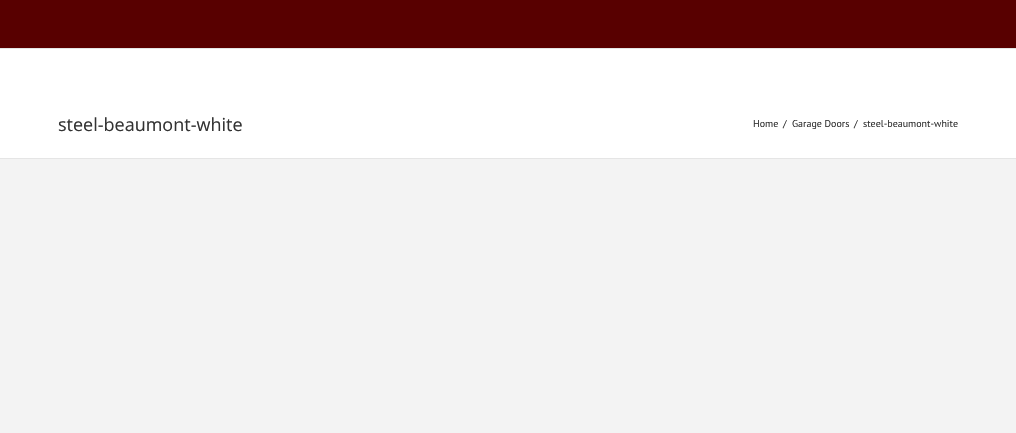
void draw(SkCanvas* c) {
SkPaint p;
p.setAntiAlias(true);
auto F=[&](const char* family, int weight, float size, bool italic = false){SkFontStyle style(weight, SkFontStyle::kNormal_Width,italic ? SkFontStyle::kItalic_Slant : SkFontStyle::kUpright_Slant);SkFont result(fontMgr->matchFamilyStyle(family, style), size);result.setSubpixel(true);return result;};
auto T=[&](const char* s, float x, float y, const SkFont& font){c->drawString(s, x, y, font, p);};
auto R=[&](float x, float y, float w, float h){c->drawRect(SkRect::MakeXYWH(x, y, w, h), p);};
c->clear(0xfff3f3f3);
p.setColor(0xff580000);
R(0,0,1016,48);
p.setColor(0xffe5e5e5);
R(0,48,1016,1);
p.setColor(0xffffffff);
R(0,49,1016,109);
p.setColor(0xffe5e5e5);
R(0,158,1016,1);
auto f1 = F("Open Sans",400,18);
p.setColor(0xff333333);
T("steel-beaumont-white",58,131,f1);
auto f2 = F("PT Sans",400,10);
T("Home",753,127,f2);
T("/",783,127,f2);
T("Garage Doors",792,127,f2);
T("/",854,127,f2);
T("steel-beaumont-white",863,127,f2);
}
